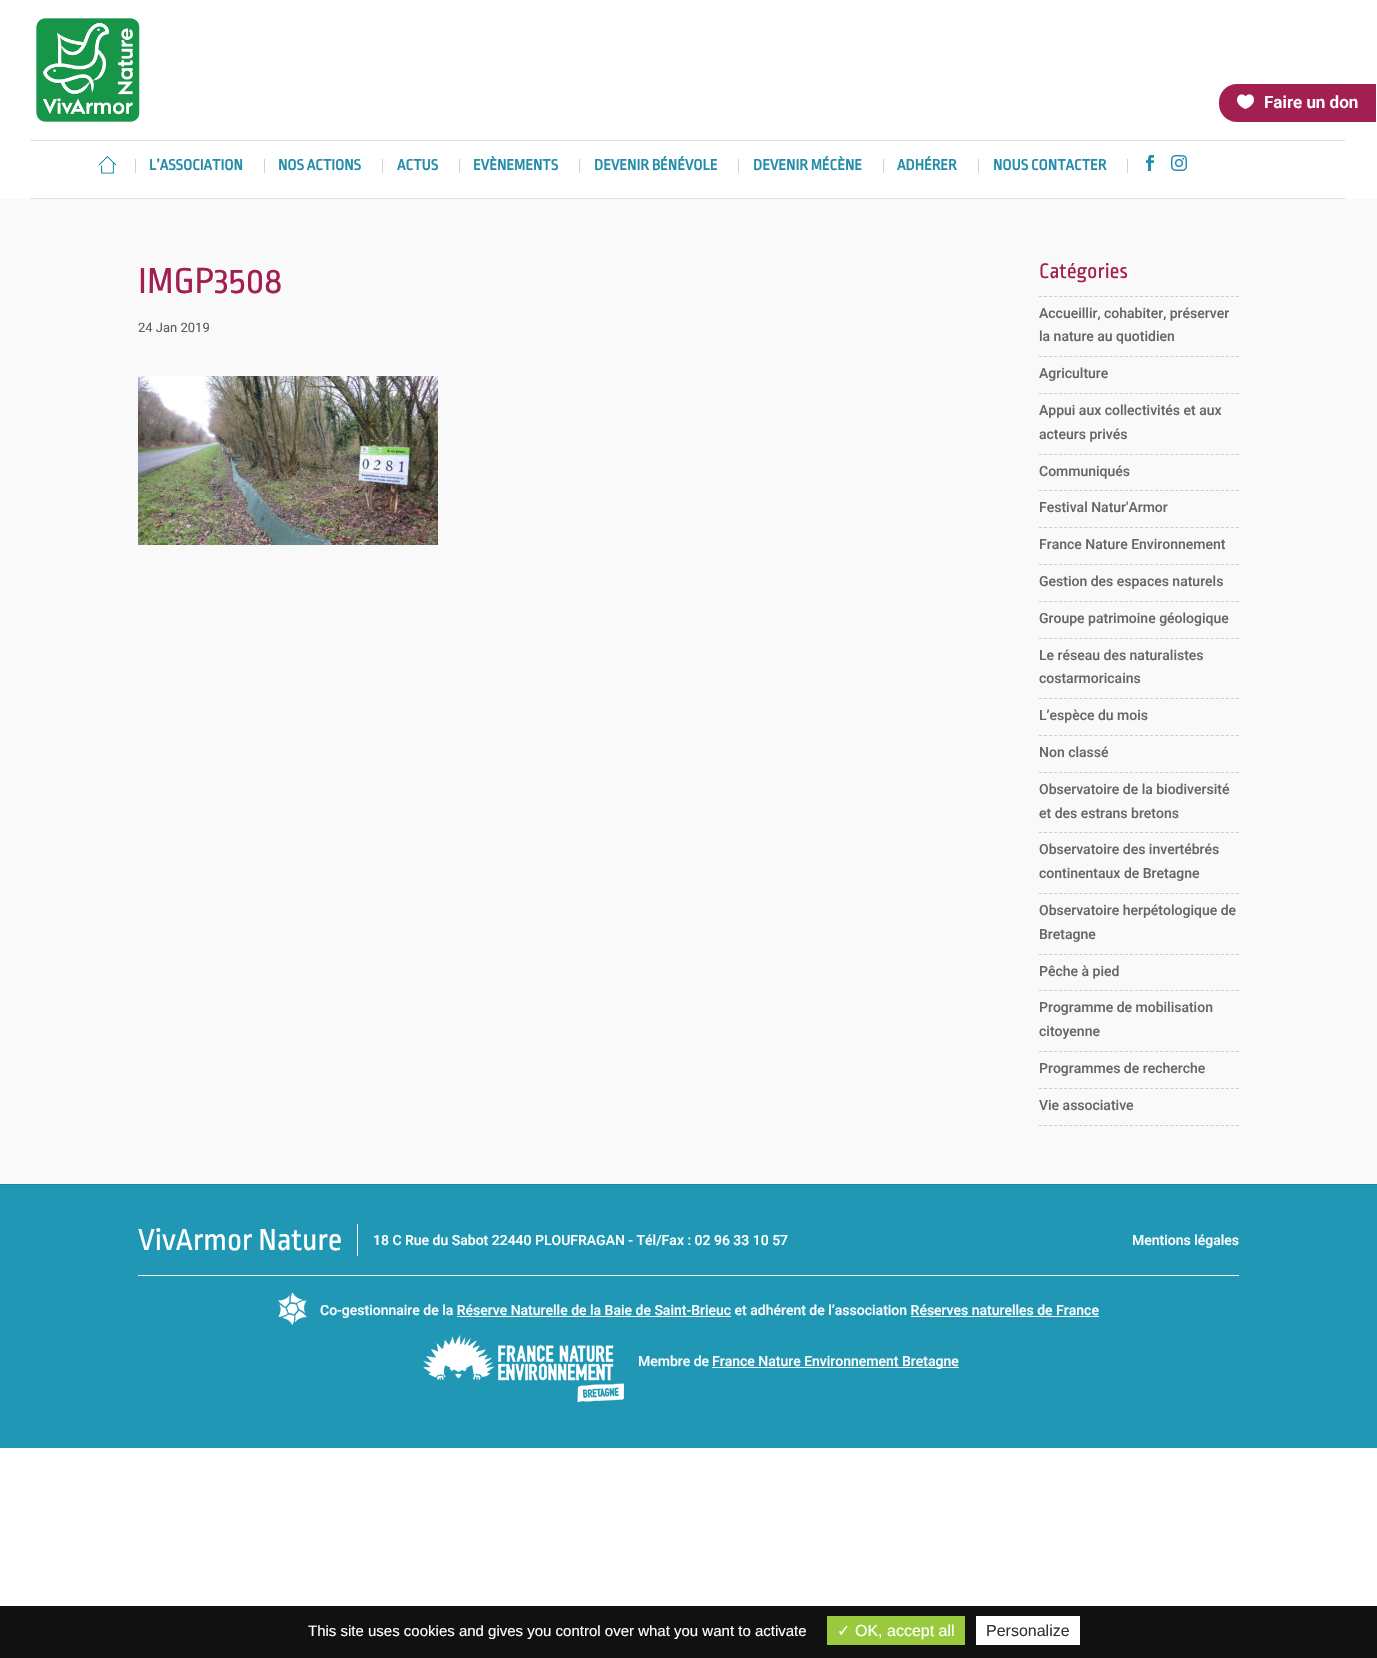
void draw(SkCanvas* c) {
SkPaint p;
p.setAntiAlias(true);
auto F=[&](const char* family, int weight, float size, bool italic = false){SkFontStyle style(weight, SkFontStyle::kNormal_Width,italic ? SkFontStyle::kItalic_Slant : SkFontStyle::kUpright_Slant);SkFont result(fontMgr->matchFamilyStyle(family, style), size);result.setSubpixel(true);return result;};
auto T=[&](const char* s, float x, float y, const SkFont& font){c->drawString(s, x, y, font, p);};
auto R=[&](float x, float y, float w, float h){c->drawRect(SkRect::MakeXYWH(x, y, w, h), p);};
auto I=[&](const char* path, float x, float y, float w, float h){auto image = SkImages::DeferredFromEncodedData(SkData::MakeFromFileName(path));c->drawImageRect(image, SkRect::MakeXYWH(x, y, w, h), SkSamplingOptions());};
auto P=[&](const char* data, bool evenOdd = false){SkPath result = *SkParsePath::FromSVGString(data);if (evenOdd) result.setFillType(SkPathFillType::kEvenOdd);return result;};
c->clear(0xffffffff);
p.setColor(0xffa31f51);
c->drawPath(P("M1237 84h139v38h-139c-10 0-18-8-18-18v-2c0-10 8-18 18-18z"),p);
I("1.png",1237,94,17,15);
auto f1 = F("Roboto",600,17);
p.setColor(0xffffffff);
T("Faire un don",1264,108,f1);
I("2.png",36,18,104,104);
p.setColor(0xffe1e1e1);
R(30,140,1315,1);
R(30,198,1315,1);
p.setColor(0xffbed9df);
R(135,159,1,14);
I("3.png",98,156,18,18);
R(264,159,1,14);
auto f2 = F("Ropa Sans",700,16);
p.setColor(0xff238daa);
T("L’ASSOCIATION",149,170,f2);
p.setColor(0xffbed9df);
R(382,159,1,14);
p.setColor(0xff238daa);
T("NOS ACTIONS",278,170,f2);
p.setColor(0xffbed9df);
R(459,159,1,14);
p.setColor(0xff238daa);
T("ACTUS",397,170,f2);
p.setColor(0xffbed9df);
R(579,159,1,14);
p.setColor(0xff238daa);
T("EVÈNEMENTS",473,170,f2);
p.setColor(0xffbed9df);
R(738,159,1,14);
p.setColor(0xff238daa);
T("DEVENIR BÉNÉVOLE",594,170,f2);
p.setColor(0xffbed9df);
R(883,159,1,14);
p.setColor(0xff238daa);
T("DEVENIR MÉCÈNE",753,170,f2);
p.setColor(0xffbed9df);
R(978,159,1,14);
p.setColor(0xff238daa);
T("ADHÉRER",897,170,f2);
p.setColor(0xffbed9df);
R(1127,159,1,14);
p.setColor(0xff238daa);
T("NOUS CONTACTER",993,170,f2);
I("4.png",1146,155,8,16);
I("5.png",1171,155,16,16);
p.setColor(0xfff9f9f9);
R(0,199,1377,985);
auto f3 = F("Ropa Sans",400,38);
p.setColor(0xffa31f51);
T("IMGP3508",138,293,f3);
auto f4 = F("Roboto",400,13);
p.setColor(0xff5c5c63);
T("24 Jan 2019",138,332,f4);
I("6.png",138,376,300,169);
auto f5 = F("Ropa Sans",400,22);
p.setColor(0xffa31f51);
T("Catégories",1039,278,f5);
p.setStroke(true);
p.setStrokeWidth(1);
p.setColor(0xffcccccc);
p.setPathEffect(SkDashPathEffect::Make({{3,2.05f}}, 0));
c->drawPath(P("M1039 296.5h200"),p);
p.setPathEffect(nullptr);
auto f6 = F("Roboto",500,14);
p.setStroke(false);
p.setColor(0xff666666);
T("Accueillir, cohabiter, préserver",1039,318,f6);
T("la nature au quotidien",1039,341,f6);
p.setStroke(true);
p.setColor(0xffcccccc);
p.setPathEffect(SkDashPathEffect::Make({{3,2.05f}}, 0));
c->drawPath(P("M1039 356.5h200"),p);
p.setPathEffect(nullptr);
p.setStroke(false);
p.setColor(0xff666666);
T("Agriculture",1039,378,f6);
p.setStroke(true);
p.setColor(0xffcccccc);
p.setPathEffect(SkDashPathEffect::Make({{3,2.05f}}, 0));
c->drawPath(P("M1039 393.5h200"),p);
p.setPathEffect(nullptr);
p.setStroke(false);
p.setColor(0xff666666);
T("Appui aux collectivités et aux",1039,415,f6);
T("acteurs privés",1039,439,f6);
p.setStroke(true);
p.setColor(0xffcccccc);
p.setPathEffect(SkDashPathEffect::Make({{3,2.05f}}, 0));
c->drawPath(P("M1039 454.5h200"),p);
p.setPathEffect(nullptr);
p.setStroke(false);
p.setColor(0xff666666);
T("Communiqués",1039,476,f6);
p.setStroke(true);
p.setColor(0xffcccccc);
p.setPathEffect(SkDashPathEffect::Make({{3,2.05f}}, 0));
c->drawPath(P("M1039 490.5h200"),p);
p.setPathEffect(nullptr);
p.setStroke(false);
p.setColor(0xff666666);
T("Festival Natur'Armor",1039,512,f6);
p.setStroke(true);
p.setColor(0xffcccccc);
p.setPathEffect(SkDashPathEffect::Make({{3,2.05f}}, 0));
c->drawPath(P("M1039 527.5h200"),p);
p.setPathEffect(nullptr);
p.setStroke(false);
p.setColor(0xff666666);
T("France Nature Environnement",1039,549,f6);
p.setStroke(true);
p.setColor(0xffcccccc);
p.setPathEffect(SkDashPathEffect::Make({{3,2.05f}}, 0));
c->drawPath(P("M1039 564.5h200"),p);
p.setPathEffect(nullptr);
p.setStroke(false);
p.setColor(0xff666666);
T("Gestion des espaces naturels",1039,586,f6);
p.setStroke(true);
p.setColor(0xffcccccc);
p.setPathEffect(SkDashPathEffect::Make({{3,2.05f}}, 0));
c->drawPath(P("M1039 601.5h200"),p);
p.setPathEffect(nullptr);
p.setStroke(false);
p.setColor(0xff666666);
T("Groupe patrimoine géologique",1039,623,f6);
p.setStroke(true);
p.setColor(0xffcccccc);
p.setPathEffect(SkDashPathEffect::Make({{3,2.05f}}, 0));
c->drawPath(P("M1039 638.5h200"),p);
p.setPathEffect(nullptr);
p.setStroke(false);
p.setColor(0xff666666);
T("Le réseau des naturalistes",1039,660,f6);
T("costarmoricains",1039,683,f6);
p.setStroke(true);
p.setColor(0xffcccccc);
p.setPathEffect(SkDashPathEffect::Make({{3,2.05f}}, 0));
c->drawPath(P("M1039 698.5h200"),p);
p.setPathEffect(nullptr);
p.setStroke(false);
p.setColor(0xff666666);
T("L’espèce du mois",1039,720,f6);
p.setStroke(true);
p.setColor(0xffcccccc);
p.setPathEffect(SkDashPathEffect::Make({{3,2.05f}}, 0));
c->drawPath(P("M1039 735.5h200"),p);
p.setPathEffect(nullptr);
p.setStroke(false);
p.setColor(0xff666666);
T("Non classé",1039,757,f6);
p.setStroke(true);
p.setColor(0xffcccccc);
p.setPathEffect(SkDashPathEffect::Make({{3,2.05f}}, 0));
c->drawPath(P("M1039 772.5h200"),p);
p.setPathEffect(nullptr);
p.setStroke(false);
p.setColor(0xff666666);
T("Observatoire de la biodiversité",1039,794,f6);
T("et des estrans bretons",1039,818,f6);
p.setStroke(true);
p.setColor(0xffcccccc);
p.setPathEffect(SkDashPathEffect::Make({{3,2.05f}}, 0));
c->drawPath(P("M1039 832.5h200"),p);
p.setPathEffect(nullptr);
p.setStroke(false);
p.setColor(0xff666666);
T("Observatoire des invertébrés",1039,854,f6);
T("continentaux de Bretagne",1039,878,f6);
p.setStroke(true);
p.setColor(0xffcccccc);
p.setPathEffect(SkDashPathEffect::Make({{3,2.05f}}, 0));
c->drawPath(P("M1039 893.5h200"),p);
p.setPathEffect(nullptr);
p.setStroke(false);
p.setColor(0xff666666);
T("Observatoire herpétologique de",1039,915,f6);
T("Bretagne",1039,939,f6);
p.setStroke(true);
p.setColor(0xffcccccc);
p.setPathEffect(SkDashPathEffect::Make({{3,2.05f}}, 0));
c->drawPath(P("M1039 954.5h200"),p);
p.setPathEffect(nullptr);
p.setStroke(false);
p.setColor(0xff666666);
T("Pêche à pied",1039,976,f6);
p.setStroke(true);
p.setColor(0xffcccccc);
p.setPathEffect(SkDashPathEffect::Make({{3,2.05f}}, 0));
c->drawPath(P("M1039 990.5h200"),p);
p.setPathEffect(nullptr);
p.setStroke(false);
p.setColor(0xff666666);
T("Programme de mobilisation",1039,1012,f6);
T("citoyenne",1039,1036,f6);
p.setStroke(true);
p.setColor(0xffcccccc);
p.setPathEffect(SkDashPathEffect::Make({{3,2.05f}}, 0));
c->drawPath(P("M1039 1051.5h200"),p);
p.setPathEffect(nullptr);
p.setStroke(false);
p.setColor(0xff666666);
T("Programmes de recherche",1039,1073,f6);
p.setStroke(true);
p.setColor(0xffcccccc);
p.setPathEffect(SkDashPathEffect::Make({{3,2.05f}}, 0));
c->drawPath(P("M1039 1088.5h200"),p);
p.setPathEffect(nullptr);
p.setPathEffect(SkDashPathEffect::Make({{3,2.05f}}, 0));
c->drawPath(P("M1039 1125.5h200"),p);
p.setPathEffect(nullptr);
p.setStroke(false);
p.setColor(0xff666666);
T("Vie associative",1039,1110,f6);
p.setColor(0xff2098b5);
R(0,1185,1377,263);
p.setColor(0xff1b86a0);
R(0,1184,1377,1);
p.setColor(0xffffffff);
R(138,1275,1101,1);
R(357,1224,1,32);
auto f7 = F("Ropa Sans",400,32);
T("VivArmor Nature",138,1250,f7);
T("18 C Rue du Sabot 22440 PLOUFRAGAN - Tél/Fax : 02 96 33 10 57",373,1245,f6);
T("Mentions légales",1132,1245,f6);
I("7.png",278,1292,29,33);
T("Co-gestionnaire de la Réserve Naturelle de la Baie de Saint-Brieuc et adhérent de l’association Réserves naturelles de France",320,1315,f6);
R(457,1316,274,1);
R(911,1316,188,1);
I("8.png",423,1335,201,67);
T("Membre de",638,1366,f6);
R(712,1367,247,1);
T("France Nature Environnement Bretagne",712,1366,f6);
p.setColor(0xff111111);
R(0,1606,1377,52);
auto f8 = F("Liberation Sans",400,15);
p.setColor(0xffffffff);
T("This site uses cookies and gives you control over what you want to activate",308,1636,f8);
p.setColor(0xff99ca3e);
R(827,1616,138,29);
auto f9 = F("DejaVu Sans",400,16);
p.setColor(0xffffffff);
T("✓",837,1636,f9);
auto f10 = F("Liberation Sans",400,16);
T("OK, accept all",855,1636,f10);
R(976,1616,104,29);
p.setColor(0xff333333);
T("Personalize",986,1636,f10);
}
